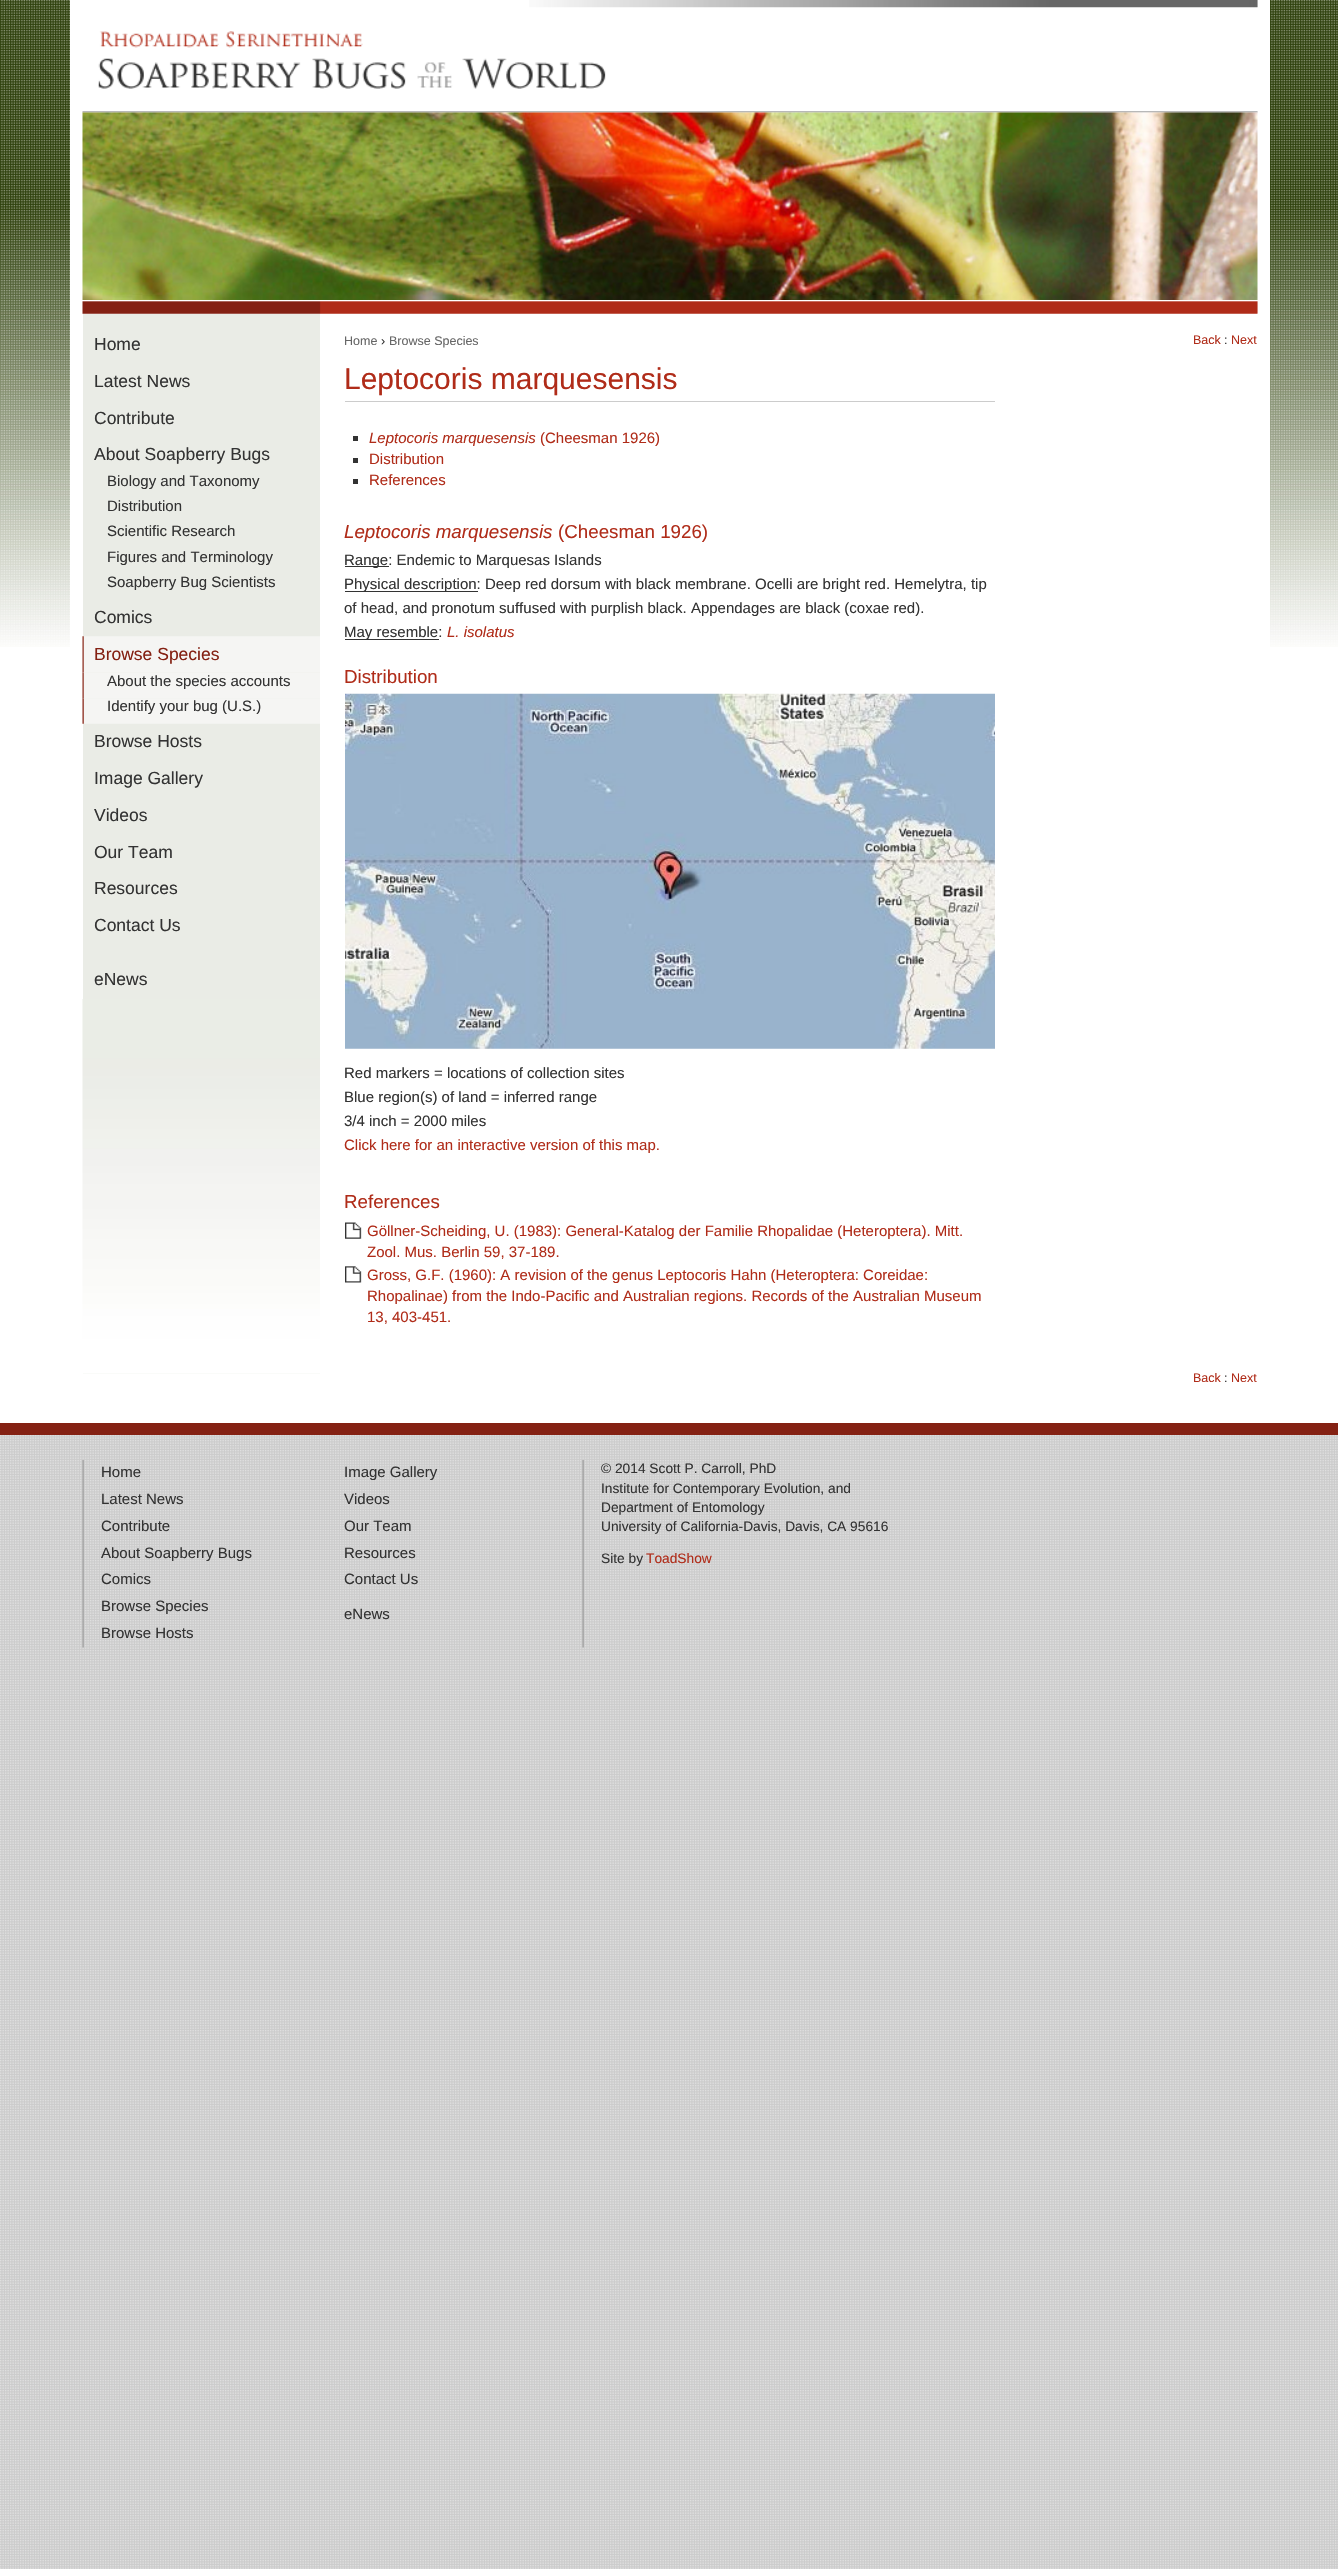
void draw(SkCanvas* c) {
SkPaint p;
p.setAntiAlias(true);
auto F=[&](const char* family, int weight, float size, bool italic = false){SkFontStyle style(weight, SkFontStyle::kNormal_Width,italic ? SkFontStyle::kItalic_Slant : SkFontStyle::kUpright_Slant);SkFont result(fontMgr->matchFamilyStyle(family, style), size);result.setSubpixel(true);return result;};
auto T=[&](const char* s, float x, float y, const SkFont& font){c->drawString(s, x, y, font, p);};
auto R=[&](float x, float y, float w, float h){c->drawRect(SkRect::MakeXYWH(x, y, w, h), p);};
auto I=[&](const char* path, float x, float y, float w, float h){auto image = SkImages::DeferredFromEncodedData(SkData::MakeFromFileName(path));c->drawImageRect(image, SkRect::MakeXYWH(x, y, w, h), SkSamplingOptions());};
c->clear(0xffffffff);
I("1.png",0,1435,1338,1134);
I("2.png",0,0,1338,647);
p.setColor(0xff842113);
R(0,1423,1338,12);
p.setColor(0xffffffff);
R(70,0,1200,647);
I("3.png",529,0,729,8);
I("4.png",82,7,1176,106);
I("5.png",82,112,1176,188);
I("6.png",82,301,1176,13);
p.setColor(0xffeaece6);
R(83,314,237,1060);
auto f1 = F("Liberation Sans",400,17.5);
p.setColor(0xff333333);
T("Home",94,350,f1);
T("Latest News",94,387,f1);
T("Contribute",94,424,f1);
T("About Soapberry Bugs",94,460,f1);
auto f2 = F("Liberation Sans",400,15);
T("Biology and Taxonomy",107,486,f2);
T("Distribution",107,511,f2);
T("Scientific Research",107,536,f2);
T("Figures and Terminology",107,562,f2);
T("Soapberry Bug Scientists",107,587,f2);
T("Comics",94,623,f1);
I("7.png",82,636,238,37);
p.setColor(0xff842113);
T("Browse Species",94,660,f1);
I("8.png",82,672,238,27);
p.setColor(0xff333333);
T("About the species accounts",107,686,f2);
I("9.png",82,698,238,26);
T("Identify your bug (U.S.)",107,711,f2);
T("Browse Hosts",94,747,f1);
T("Image Gallery",94,784,f1);
T("Videos",94,821,f1);
T("Our Team",94,858,f1);
T("Resources",94,894,f1);
T("Contact Us",94,931,f1);
T("eNews",94,985,f1);
I("10.png",82,999,238,375);
auto f3 = F("Liberation Sans",400,12.5);
p.setColor(0xff666666);
T("Home",344,345,f3);
p.setColor(0xff333333);
T("›",381,345,f3);
p.setColor(0xff666666);
T("Browse Species",389,345,f3);
p.setColor(0xffb02c19);
T("Back",1193,344,f3);
p.setColor(0xff333333);
T(":",1224,344,f3);
p.setColor(0xffb02c19);
T("Next",1231,344,f3);
p.setColor(0xffcccccc);
R(345,401,650,1);
auto f4 = F("Liberation Sans",400,30);
p.setColor(0xffb02c19);
T("Leptocoris marquesensis",344,389,f4);
p.setColor(0xff333333);
R(353,436,5,5);
auto f5 = F("Liberation Sans",400,15,true);
p.setColor(0xffb02c19);
T("Leptocoris marquesensis",369,443,f5);
T("(Cheesman 1926)",540,443,f2);
p.setColor(0xff333333);
R(353,458,5,5);
p.setColor(0xffb02c19);
T("Distribution",369,464,f2);
p.setColor(0xff333333);
R(353,479,5,5);
p.setColor(0xffb02c19);
T("References",369,485,f2);
auto f6 = F("Liberation Sans",400,18.75,true);
T("Leptocoris marquesensis",344,538,f6);
auto f7 = F("Liberation Sans",400,18.75);
T("(Cheesman 1926)",558,538,f7);
p.setColor(0xff333333);
R(345,566,44,1);
T("Range: Endemic to Marquesas Islands",344,565,f2);
R(345,591,133,1);
T("Physical description: Deep red dorsum with black membrane. Ocelli are bright red. Hemelytra, tip",344,589,f2);
T("of head, and pronotum suffused with purplish black. Appendages are black (coxae red).",344,613,f2);
R(345,639,94,1);
T("May resemble:",344,637,f2);
p.setColor(0xffb02c19);
T("L. isolatus",447,637,f5);
T("Distribution",344,683,f7);
I("11.png",345,693,650,356);
p.setColor(0xff333333);
T("Red markers = locations of collection sites",344,1078,f2);
T("Blue region(s) of land = inferred range",344,1102,f2);
T("3/4 inch = 2000 miles",344,1126,f2);
p.setColor(0xffb02c19);
T("Click here for an interactive version of this map.",344,1150,f2);
T("References",344,1208,f7);
I("12.png",345,1222,17,17);
T("Göllner-Scheiding, U. (1983): General-Katalog der Familie Rhopalidae (Heteroptera). Mitt.",367,1236,f2);
T("Zool. Mus. Berlin 59, 37-189.",367,1257,f2);
I("13.png",345,1266,17,17);
T("Gross, G.F. (1960): A revision of the genus Leptocoris Hahn (Heteroptera: Coreidae:",367,1280,f2);
T("Rhopalinae) from the Indo-Pacific and Australian regions. Records of the Australian Museum",367,1301,f2);
T("13, 403-451.",367,1322,f2);
T("Back",1193,1382,f3);
p.setColor(0xff333333);
T(":",1224,1382,f3);
p.setColor(0xffb02c19);
T("Next",1231,1382,f3);
I("14.png",82,1460,502,188);
p.setColor(0xff333333);
T("Home",101,1477,f2);
T("Latest News",101,1504,f2);
T("Contribute",101,1531,f2);
T("About Soapberry Bugs",101,1558,f2);
T("Comics",101,1584,f2);
T("Browse Species",101,1611,f2);
T("Browse Hosts",101,1638,f2);
T("Image Gallery",344,1477,f2);
T("Videos",344,1504,f2);
T("Our Team",344,1531,f2);
T("Resources",344,1558,f2);
T("Contact Us",344,1584,f2);
T("eNews",344,1619,f2);
auto f8 = F("Liberation Sans",400,13.75);
T("© 2014 Scott P. Carroll, PhD",601,1473,f8);
T("Institute for Contemporary Evolution, and",601,1493,f8);
T("Department of Entomology",601,1512,f8);
T("University of California-Davis, Davis, CA 95616",601,1531,f8);
T("Site by",601,1563,f8);
p.setColor(0xffb02c19);
T("ToadShow",646,1563,f8);
}
